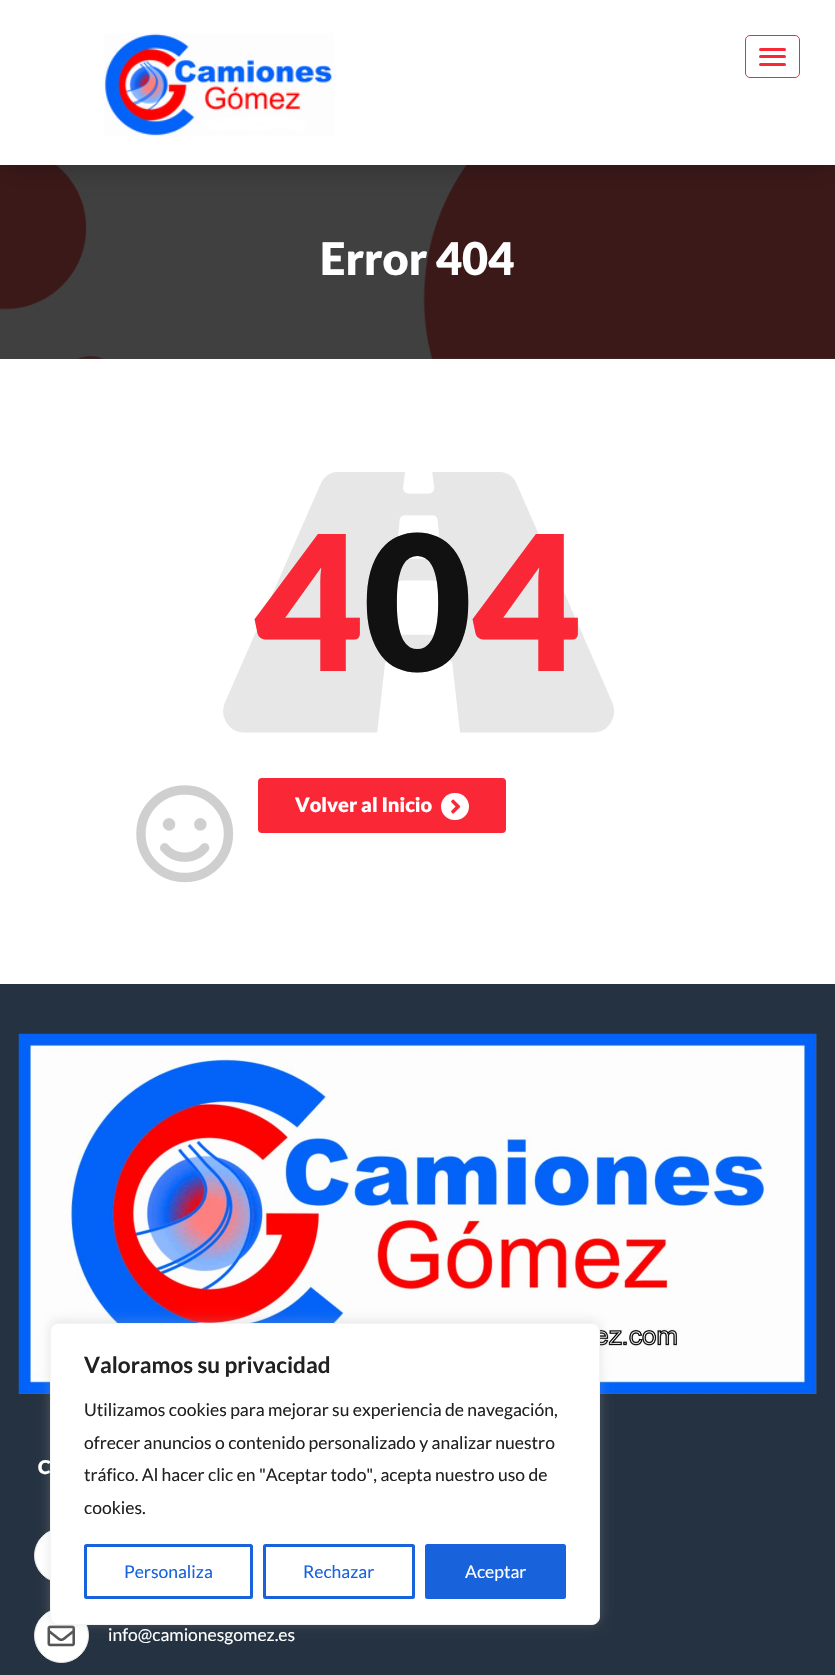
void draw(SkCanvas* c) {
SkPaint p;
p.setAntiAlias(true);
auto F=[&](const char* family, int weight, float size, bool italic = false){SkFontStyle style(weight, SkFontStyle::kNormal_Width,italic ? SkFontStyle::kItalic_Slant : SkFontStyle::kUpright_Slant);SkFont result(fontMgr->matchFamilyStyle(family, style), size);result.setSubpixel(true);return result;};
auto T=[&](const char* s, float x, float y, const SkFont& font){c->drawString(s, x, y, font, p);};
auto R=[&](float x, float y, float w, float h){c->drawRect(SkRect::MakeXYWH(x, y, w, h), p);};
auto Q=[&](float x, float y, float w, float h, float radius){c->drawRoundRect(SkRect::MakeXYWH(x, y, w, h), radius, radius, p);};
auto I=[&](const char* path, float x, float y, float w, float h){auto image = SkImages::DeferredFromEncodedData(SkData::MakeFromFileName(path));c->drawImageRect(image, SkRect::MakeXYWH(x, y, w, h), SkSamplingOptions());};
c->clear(0xffffffff);
p.setColor(0xff404040);
R(0,165,835,194);
I("2.png",0,165,835,194);
p.setColor(0x4d000000);
p.setMaskFilter(SkMaskFilter::MakeBlur(kNormal_SkBlurStyle, 15));
c->drawRect(SkRect::MakeXYWH(0,0,835,165),p);
p.setMaskFilter(nullptr);
p.setColor(0xffffffff);
R(0,0,835,165);
I("1.png",104,33,230,103);
p.setStroke(true);
p.setStrokeWidth(1);
p.setColor(0xfffa2837);
c->drawRoundRect(SkRect::MakeXYWH(745.5,35.5,54,42),4.5,4.5,p);
p.setStroke(false);
Q(759,48,27,3,1.5);
Q(759,55,27,3,1.5);
Q(759,63,27,3,1.5);
auto f1 = F("Lato",900,45);
p.setColor(0xffffffff);
T("Error 404",320,275,f1);
I("3.png",223,472,391,261);
auto f2 = F("Lato",900,188);
p.setColor(0xfffa2837);
T("4",254,671,f2);
p.setColor(0xff111111);
T("0",363,671,f2);
p.setColor(0xfffa2837);
T("4",472,671,f2);
I("4.png",136,785,98,98);
Q(258,778,248,55,4);
auto f3 = F("Lato",900,20);
p.setColor(0xffffffff);
T("Volver al Inicio",295,812,f3);
Q(441,793,28,27,13.5);
I("5.png",451,799,10,15);
p.setColor(0xff253241);
R(0,984,835,691);
I("6.png",18,1033,799,361);
p.setColor(0xffffffff);
c->drawCircle(61.5,1555.5,27,p);
p.setStroke(true);
p.setColor(0xffe6e5e5);
c->drawCircle(61.5,1555.5,27,p);
p.setStroke(false);
p.setColor(0xffffffff);
c->drawCircle(61.5,1635.5,27,p);
p.setStroke(true);
p.setColor(0xffe6e5e5);
c->drawCircle(61.5,1635.5,27,p);
I("7.png",47,1625,28,22);
p.setStroke(false);
p.setColor(0x4dacabab);
p.setMaskFilter(SkMaskFilter::MakeBlur(kNormal_SkBlurStyle, 6));
c->drawRoundRect(SkRect::MakeXYWH(50,1321,550,303),8,8,p);
p.setMaskFilter(nullptr);
p.setColor(0xffffffff);
c->drawRoundRect(SkRect::MakeXYWH(50.5,1323.5,549,301),7.5,7.5,p);
p.setStroke(true);
p.setColor(0xfff4f4f4);
c->drawRoundRect(SkRect::MakeXYWH(50.5,1323.5,549,301),7.5,7.5,p);
auto f4 = F("Lato",700,22.5);
p.setStroke(false);
p.setColor(0xff212121);
T("Valoramos su privacidad",84,1373,f4);
auto f5 = F("Lato",400,17.5);
T("Utilizamos cookies para mejorar su experiencia de navegación,",84,1416,f5);
T("ofrecer anuncios o contenido personalizado y analizar nuestro",84,1449,f5);
T("tráfico. Al hacer clic en \"Aceptar todo\", acepta nuestro uso de",84,1481,f5);
T("cookies.",84,1514,f5);
p.setStroke(true);
p.setStrokeWidth(3);
p.setColor(0xff1863dc);
c->drawRoundRect(SkRect::MakeXYWH(85.5,1545.5,166,52),1,1,p);
p.setStroke(false);
T("Personaliza",124,1578,f5);
p.setStroke(true);
c->drawRoundRect(SkRect::MakeXYWH(264.5,1545.5,149,52),1,1,p);
p.setStroke(false);
T("Rechazar",303,1578,f5);
c->drawRoundRect(SkRect::MakeXYWH(426.5,1545.5,138,52),1,1,p);
p.setStroke(true);
c->drawRoundRect(SkRect::MakeXYWH(426.5,1545.5,138,52),1,1,p);
p.setStroke(false);
p.setColor(0xffffffff);
T("Aceptar",465,1578,f5);
auto f6 = F("Lato",900,19);
T("C",38,1474,f6);
T("info@camionesgomez.es",108,1641,f5);
}
